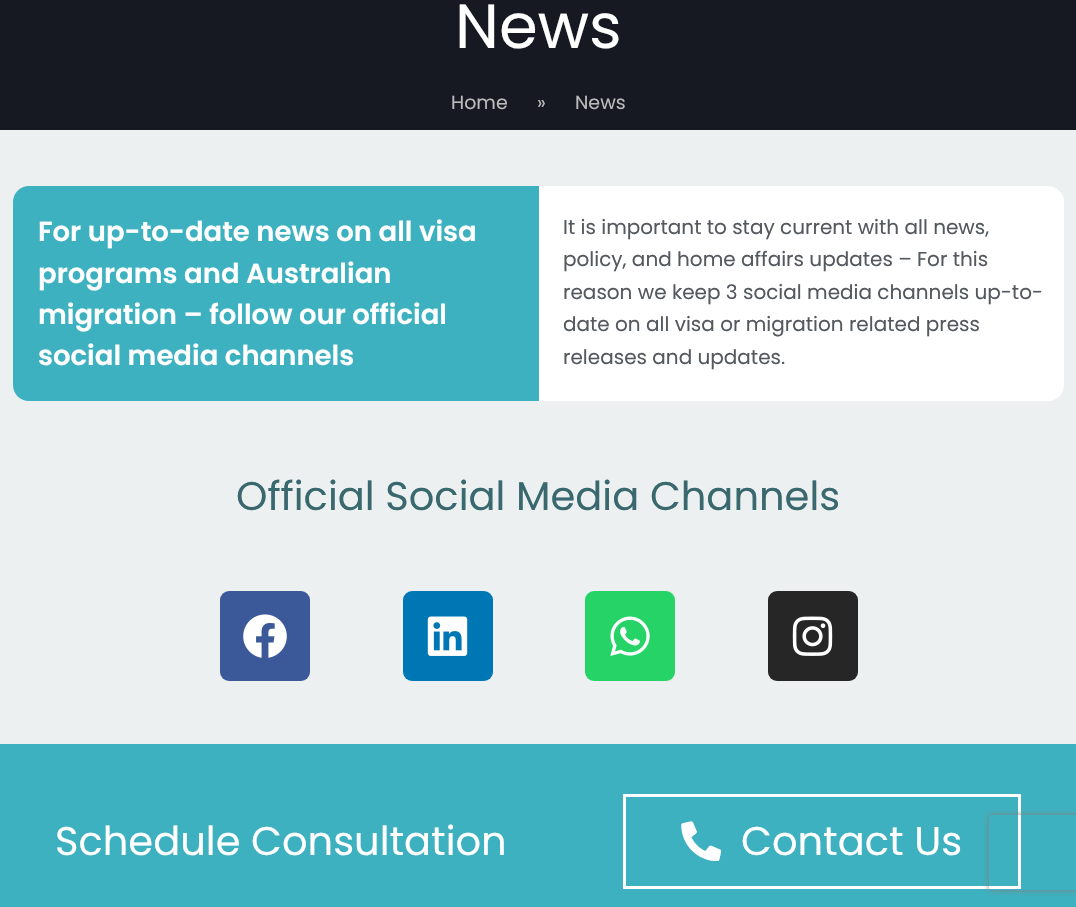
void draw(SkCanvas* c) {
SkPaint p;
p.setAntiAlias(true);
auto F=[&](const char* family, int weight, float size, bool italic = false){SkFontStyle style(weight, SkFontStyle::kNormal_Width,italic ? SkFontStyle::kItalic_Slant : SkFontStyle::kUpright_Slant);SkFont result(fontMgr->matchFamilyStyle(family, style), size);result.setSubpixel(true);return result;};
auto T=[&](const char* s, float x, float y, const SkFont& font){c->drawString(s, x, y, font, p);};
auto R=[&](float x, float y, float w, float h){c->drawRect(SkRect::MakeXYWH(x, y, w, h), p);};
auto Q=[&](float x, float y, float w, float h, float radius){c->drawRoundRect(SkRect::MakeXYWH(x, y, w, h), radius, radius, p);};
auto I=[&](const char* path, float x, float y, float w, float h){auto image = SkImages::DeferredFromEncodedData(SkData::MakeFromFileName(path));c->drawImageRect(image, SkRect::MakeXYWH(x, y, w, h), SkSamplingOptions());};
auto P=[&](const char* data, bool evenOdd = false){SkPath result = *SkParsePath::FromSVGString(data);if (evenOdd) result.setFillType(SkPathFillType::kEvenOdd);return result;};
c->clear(0xffecf0f0);
p.setColor(0xff161922);
R(0,0,1076,130);
auto f1 = F("Poppins",400,62.5);
p.setColor(0xffffffff);
T("News",455,48,f1);
auto f2 = F("Poppins",400,19);
p.setColor(0xffbbbbbb);
T("Home",451,109,f2);
T("»",537,109,f2);
T("News",575,109,f2);
p.setColor(0xff3db1c0);
c->drawPath(P("M29 186h510v215h-510c-9 0-16-7-16-16v-183c0-9 7-16 16-16z"),p);
auto f3 = F("Poppins",600,27.5);
p.setColor(0xffffffff);
T("For up-to-date news on all visa",38,241,f3);
T("programs and Australian",38,283,f3);
T("migration – follow our official",38,324,f3);
T("social media channels",38,365,f3);
c->drawPath(P("M539 186h509c9 0 16 7 16 16v183c0 9-7 16-16 16h-509z"),p);
auto f4 = F("Poppins",400,20);
p.setColor(0xff54595f);
T("It is important to stay current with all news,",563,234,f4);
T("policy, and home affairs updates – For this",563,266,f4);
T("reason we keep 3 social media channels up-to-",563,299,f4);
T("date on all visa or migration related press",563,331,f4);
T("releases and updates.",563,364,f4);
auto f5 = F("Poppins",400,40);
p.setColor(0xff39686e);
T("Official Social Media Channels",236,510,f5);
p.setColor(0xff3b5998);
Q(220,591,90,90,9);
I("1.png",243,614,44,44);
p.setColor(0xff0077b5);
Q(403,591,90,90,9);
I("2.png",427,616,41,40);
p.setColor(0xff25d366);
Q(585,591,90,90,9);
I("3.png",610,616,40,40);
p.setColor(0xff262626);
Q(768,591,90,90,9);
I("4.png",792,616,41,40);
p.setColor(0xff3db1c0);
R(0,744,1076,163);
p.setColor(0xffffffff);
T("Schedule Consultation",55,855,f5);
p.setStroke(true);
p.setStrokeWidth(3);
c->drawRect(SkRect::MakeXYWH(624.5,795.5,395,92),p);
I("5.png",681,821,40,40);
p.setStroke(false);
T("Contact Us",741,855,f5);
c->save();
c->clipPath(P("M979 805h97v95h-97zm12.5 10h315c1.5 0 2.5 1 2.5 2.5v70c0 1.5-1 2.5-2.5 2.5h-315c-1.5 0-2.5-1-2.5-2.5v-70c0-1.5 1-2.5 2.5-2.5z",true),true);
p.setColor(0xff808080);
p.setMaskFilter(SkMaskFilter::MakeBlur(kNormal_SkBlurStyle, 3));
c->drawRoundRect(SkRect::MakeXYWH(989,815,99,75),2.5,2.5,p);
p.setMaskFilter(nullptr);
c->restore();
}
